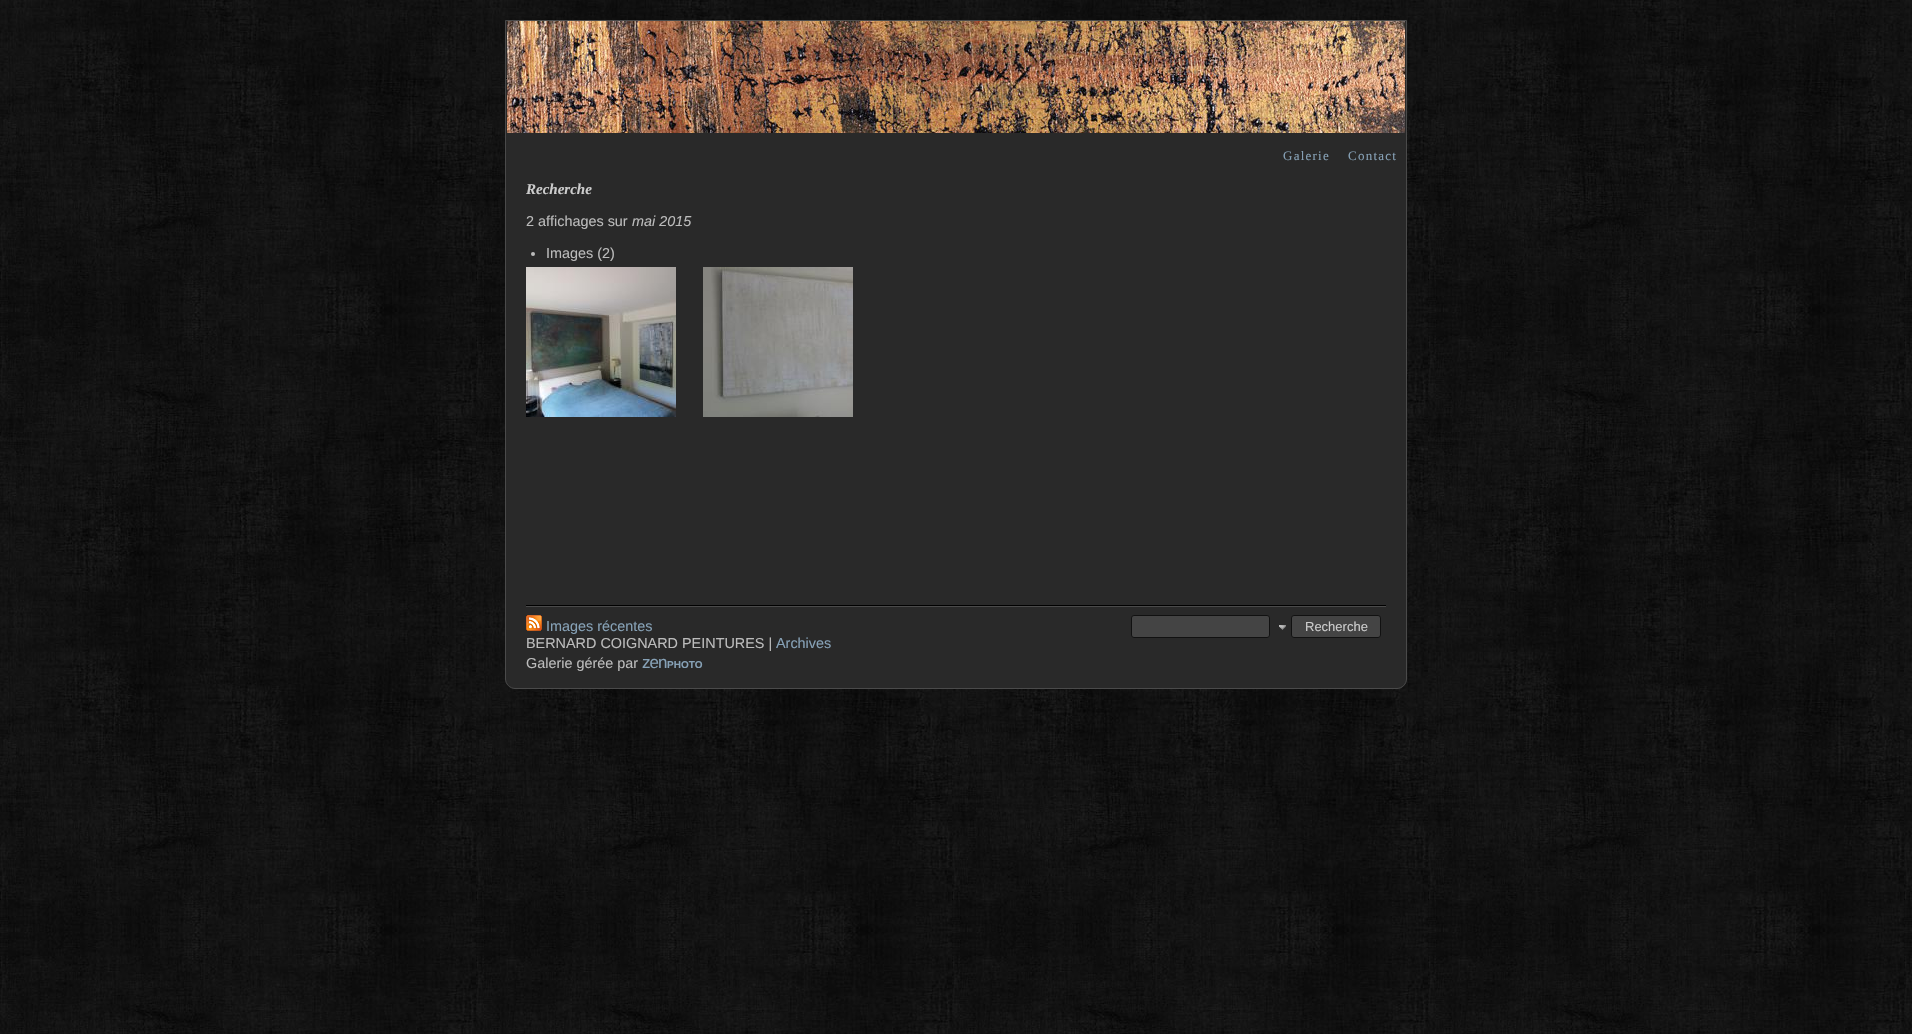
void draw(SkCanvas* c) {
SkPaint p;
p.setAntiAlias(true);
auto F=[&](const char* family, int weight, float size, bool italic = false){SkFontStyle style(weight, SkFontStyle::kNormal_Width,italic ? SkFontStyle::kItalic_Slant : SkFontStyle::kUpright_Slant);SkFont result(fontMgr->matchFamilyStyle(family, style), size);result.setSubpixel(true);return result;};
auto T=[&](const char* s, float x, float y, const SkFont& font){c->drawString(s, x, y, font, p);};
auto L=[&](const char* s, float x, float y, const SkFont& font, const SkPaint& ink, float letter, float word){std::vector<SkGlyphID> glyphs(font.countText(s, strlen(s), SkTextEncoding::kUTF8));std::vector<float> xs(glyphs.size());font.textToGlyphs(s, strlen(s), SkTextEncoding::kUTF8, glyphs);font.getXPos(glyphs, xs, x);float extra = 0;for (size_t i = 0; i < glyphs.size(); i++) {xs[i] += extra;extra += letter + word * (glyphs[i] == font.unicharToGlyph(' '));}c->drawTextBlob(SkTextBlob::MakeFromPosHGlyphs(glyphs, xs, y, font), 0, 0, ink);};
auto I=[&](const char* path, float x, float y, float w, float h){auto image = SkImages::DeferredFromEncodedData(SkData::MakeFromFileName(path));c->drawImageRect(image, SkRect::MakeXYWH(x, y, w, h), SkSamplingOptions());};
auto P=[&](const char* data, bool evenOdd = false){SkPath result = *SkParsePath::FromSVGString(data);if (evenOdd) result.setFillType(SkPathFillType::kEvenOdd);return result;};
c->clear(0xffffffff);
I("1.png",0,0,1912,1034);
p.setColor(0xff292929);
c->drawPath(P("M505.5 20.5h901v658.5c0 5-4.5 9.5-9.5 9.5h-882c-5 0-9.5-4.5-9.5-9.5z"),p);
p.setStroke(true);
p.setStrokeWidth(1);
p.setColor(0xff4a4a4a);
c->drawPath(P("M505.5 20.5h901v658.5c0 5-4.5 9.5-9.5 9.5h-882c-5 0-9.5-4.5-9.5-9.5z"),p);
I("2.png",506,78,900,2);
I("3.png",507,21,898,112);
auto f1 = F("Liberation Serif",400,13);
p.setStroke(false);
p.setColor(0xff86a1b6);
L("Galerie",1283,160,f1,p,1.25,0);
L("Contact",1348,160,f1,p,1.25,0);
auto f2 = F("Liberation Serif",700,15,true);
p.setColor(0xffcccccc);
T("Recherche",526,194,f2);
auto f3 = F("Liberation Sans",400,14.4);
p.setColor(0xffbbbbbb);
T("2 affichages sur",526,226,f3);
auto f4 = F("Liberation Sans",400,14.4,true);
T("mai 2015",632,226,f4);
c->drawCircle(533,254,2,p);
T("Images (2)",546,258,f3);
I("4.png",526,267,150,150);
I("5.png",703,267,150,150);
I("6.png",526,605,860,2);
I("7.png",526,615,16,16);
p.setColor(0xff86a1b6);
T("Images récentes",546,631,f3);
p.setColor(0xffbbbbbb);
T("BERNARD COIGNARD PEINTURES |",526,648,f3);
p.setColor(0xff86a1b6);
T("Archives",776,648,f3);
p.setColor(0xffbbbbbb);
T("Galerie gérée par",526,668,f3);
auto f5 = F("Liberation Sans",400,17);
p.setColor(0xff86a1b6);
L("zen",642,668,f5,p,-1,0);
auto f6 = F("Liberation Sans",700,10);
T("PHOTO",667,668,f6);
p.setColor(0xff444444);
c->drawRoundRect(SkRect::MakeXYWH(1131.5,615.5,138,22),2.5,2.5,p);
p.setStroke(true);
p.setColor(0xff111111);
c->drawRoundRect(SkRect::MakeXYWH(1131.5,615.5,138,22),2.5,2.5,p);
I("8.png",1279,625,7,5);
p.setStroke(false);
p.setColor(0xff444444);
c->drawRoundRect(SkRect::MakeXYWH(1291.5,615.5,89,22),2.5,2.5,p);
p.setStroke(true);
p.setColor(0xff111111);
c->drawRoundRect(SkRect::MakeXYWH(1291.5,615.5,89,22),2.5,2.5,p);
auto f7 = F("Liberation Sans",400,13);
p.setStroke(false);
p.setColor(0xffcccccc);
T("Recherche",1305,631,f7);
}
